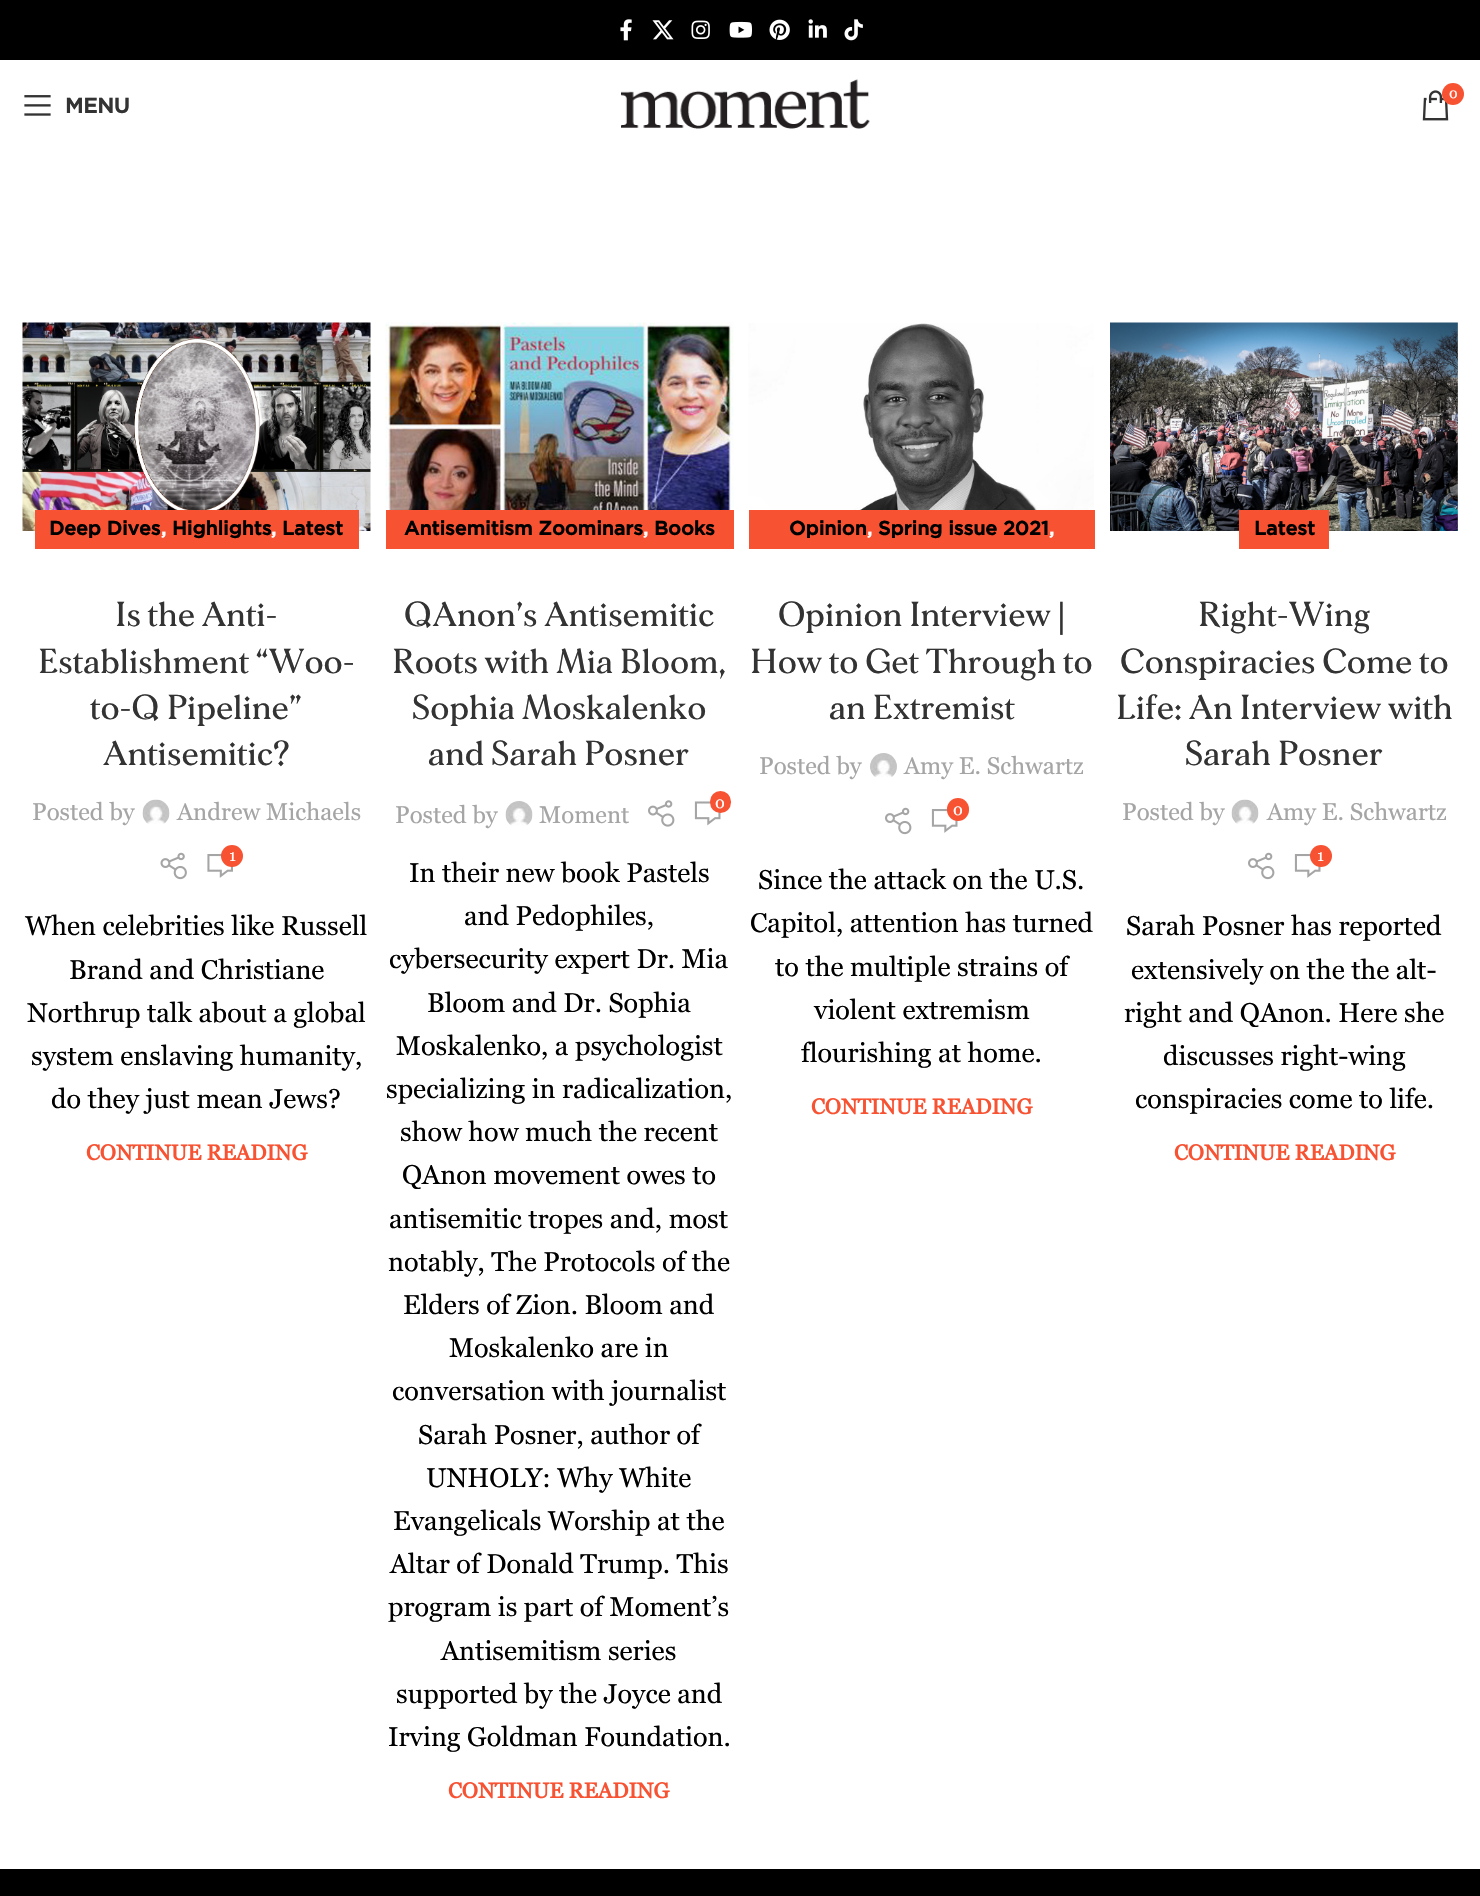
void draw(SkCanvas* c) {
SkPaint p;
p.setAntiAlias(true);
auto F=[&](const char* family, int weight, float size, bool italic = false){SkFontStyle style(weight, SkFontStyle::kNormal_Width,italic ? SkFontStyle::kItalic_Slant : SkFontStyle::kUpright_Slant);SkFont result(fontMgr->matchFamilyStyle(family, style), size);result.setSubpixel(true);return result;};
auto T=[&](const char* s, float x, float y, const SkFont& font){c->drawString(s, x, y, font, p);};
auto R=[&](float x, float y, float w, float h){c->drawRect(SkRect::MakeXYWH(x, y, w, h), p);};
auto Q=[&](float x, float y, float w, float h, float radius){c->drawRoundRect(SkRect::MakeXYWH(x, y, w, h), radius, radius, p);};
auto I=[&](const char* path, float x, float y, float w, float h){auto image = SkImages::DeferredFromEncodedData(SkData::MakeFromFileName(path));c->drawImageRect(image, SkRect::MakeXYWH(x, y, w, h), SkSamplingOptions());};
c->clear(0xffffffff);
p.setColor(0xff000000);
R(0,0,1480,60);
I("1.png",620,19,12,22);
I("2.png",652,20,22,20);
I("3.png",691,20,19,19);
I("4.png",729,21,23,17);
I("5.png",769,19,21,21);
I("6.png",808,19,19,19);
I("7.png",844,19,19,22);
I("8.png",621,79,249,50);
I("9.png",1422,90,27,31);
p.setColor(0xfff75232);
c->drawCircle(1453,94,11,p);
auto f1 = F("Georgia",400,14);
p.setColor(0xffffffff);
T("0",1449,98,f1);
I("10.png",24,95,27,21);
auto f2 = F("Gotham",700,21);
p.setColor(0xff333333);
T("MENU",65,113,f2);
I("11.png",22,322,349,209);
p.setColor(0xfff75232);
R(35,510,324,39);
auto f3 = F("Gotham",700,19.5);
p.setColor(0xff000000);
T("Deep Dives",49,535,f3);
auto f4 = F("Gotham",700,19);
p.setColor(0xffffffff);
T(",",161,535,f4);
p.setColor(0xff000000);
T("Highlights",172,535,f3);
p.setColor(0xffffffff);
T(",",271,535,f4);
p.setColor(0xff000000);
T("Latest",282,535,f3);
auto f5 = F("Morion",600,33);
p.setColor(0xff333333);
T("Is the Anti-",115,626,f5);
T("Establishment “Woo-",38,673,f5);
T("to-Q Pipeline”",90,719,f5);
T("Antisemitic?",103,765,f5);
auto f6 = F("Georgia",400,24);
p.setColor(0xffa5a5a5);
T("Posted by",32,820,f6);
I("12.png",142,799,28,25);
T("Andrew Michaels",177,820,f6);
I("13.png",160,852,27,28);
I("14.png",207,854,26,24);
p.setColor(0xfff75232);
c->drawCircle(232,856,11,p);
auto f7 = F("Georgia",400,16);
p.setColor(0xffffffff);
T("1",229,861,f7);
auto f8 = F("Georgia",400,27);
p.setColor(0xff000000);
T("When celebrities like Russell",25,935,f8);
T("Brand and Christiane",69,979,f8);
T("Northrup talk about a global",27,1022,f8);
T("system enslaving humanity,",31,1065,f8);
T("do they just mean Jews?",51,1108,f8);
auto f9 = F("Georgia",700,21.6);
p.setColor(0xfff75232);
T("CONTINUE READING",86,1160,f9);
I("15.png",385,322,349,209);
R(386,510,348,39);
p.setColor(0xff000000);
T("Antisemitism Zoominars",404,535,f3);
p.setColor(0xffffffff);
T(",",643,535,f4);
p.setColor(0xff000000);
T("Books",654,535,f3);
p.setColor(0xff333333);
T("QAnon’s Antisemitic",404,626,f5);
T("Roots with Mia Bloom,",392,673,f5);
T("Sophia Moskalenko",412,719,f5);
T("and Sarah Posner",428,765,f5);
p.setColor(0xffa5a5a5);
T("Posted by",395,823,f6);
I("16.png",505,801,28,25);
T("Moment",539,823,f6);
I("17.png",648,800,27,27);
I("18.png",694,801,27,25);
p.setColor(0xfff75232);
Q(710,791,21,22,10.5);
p.setColor(0xffffffff);
T("0",715,808,f7);
p.setColor(0xff000000);
T("In their new book Pastels",409,882,f8);
T("and Pedophiles,",464,925,f8);
T("cybersecurity expert Dr. Mia",389,968,f8);
T("Bloom and Dr. Sophia",427,1012,f8);
T("Moskalenko, a psychologist",396,1055,f8);
T("specializing in radicalization,",386,1098,f8);
T("show how much the recent",400,1141,f8);
T("QAnon movement owes to",402,1184,f8);
T("antisemitic tropes and, most",389,1228,f8);
T("notably, The Protocols of the",388,1271,f8);
T("Elders of Zion. Bloom and",403,1314,f8);
T("Moskalenko are in",449,1357,f8);
T("conversation with journalist",392,1400,f8);
T("Sarah Posner, author of",418,1444,f8);
T("UNHOLY: Why White",426,1487,f8);
T("Evangelicals Worship at the",393,1530,f8);
T("Altar of Donald Trump. This",390,1573,f8);
T("program is part of Moment’s",388,1616,f8);
T("Antisemitism series",441,1660,f8);
T("supported by the Joyce and",396,1703,f8);
T("Irving Goldman Foundation.",388,1746,f8);
p.setColor(0xfff75232);
T("CONTINUE READING",448,1798,f9);
I("19.png",748,323,346,208);
R(749,510,346,39);
p.setColor(0xff000000);
T("Opinion",789,535,f3);
p.setColor(0xffffffff);
T(",",867,535,f4);
p.setColor(0xff000000);
T("Spring issue 2021",878,535,f3);
p.setColor(0xffffffff);
T(",",1049,535,f4);
p.setColor(0xff333333);
T("Opinion Interview |",778,626,f5);
T("How to Get Through to",750,673,f5);
T("an Extremist",829,719,f5);
p.setColor(0xffa5a5a5);
T("Posted by",759,774,f6);
I("20.png",870,753,27,24);
T("Amy E. Schwartz",904,774,f6);
I("21.png",885,807,27,28);
I("22.png",931,809,27,24);
p.setColor(0xfff75232);
Q(947,798,22,23,11);
p.setColor(0xffffffff);
T("0",953,815,f7);
p.setColor(0xff000000);
T("Since the attack on the U.S.",758,889,f8);
T("Capitol, attention has turned",750,932,f8);
T("to the multiple strains of",775,976,f8);
T("violent extremism",814,1019,f8);
T("flourishing at home.",801,1062,f8);
p.setColor(0xfff75232);
T("CONTINUE READING",811,1114,f9);
I("23.png",1110,322,348,209);
R(1239,510,90,39);
p.setColor(0xff000000);
T("Latest",1254,535,f3);
p.setColor(0xff333333);
T("Right-Wing",1198,626,f5);
T("Conspiracies Come to",1120,673,f5);
T("Life: An Interview with",1116,719,f5);
T("Sarah Posner",1185,765,f5);
p.setColor(0xffa5a5a5);
T("Posted by",1122,820,f6);
I("24.png",1231,799,28,25);
T("Amy E. Schwartz",1267,820,f6);
I("21.png",1248,852,27,28);
I("22.png",1294,854,27,24);
p.setColor(0xfff75232);
c->drawCircle(1321,856,11,p);
p.setColor(0xffffffff);
T("1",1317,861,f7);
p.setColor(0xff000000);
T("Sarah Posner has reported",1126,935,f8);
T("extensively on the the alt-",1131,979,f8);
T("right and QAnon. Here she",1124,1022,f8);
T("discusses right-wing",1163,1065,f8);
T("conspiracies come to life.",1135,1108,f8);
p.setColor(0xfff75232);
T("CONTINUE READING",1174,1160,f9);
p.setColor(0xff000000);
R(0,1869,1480,27);
}
